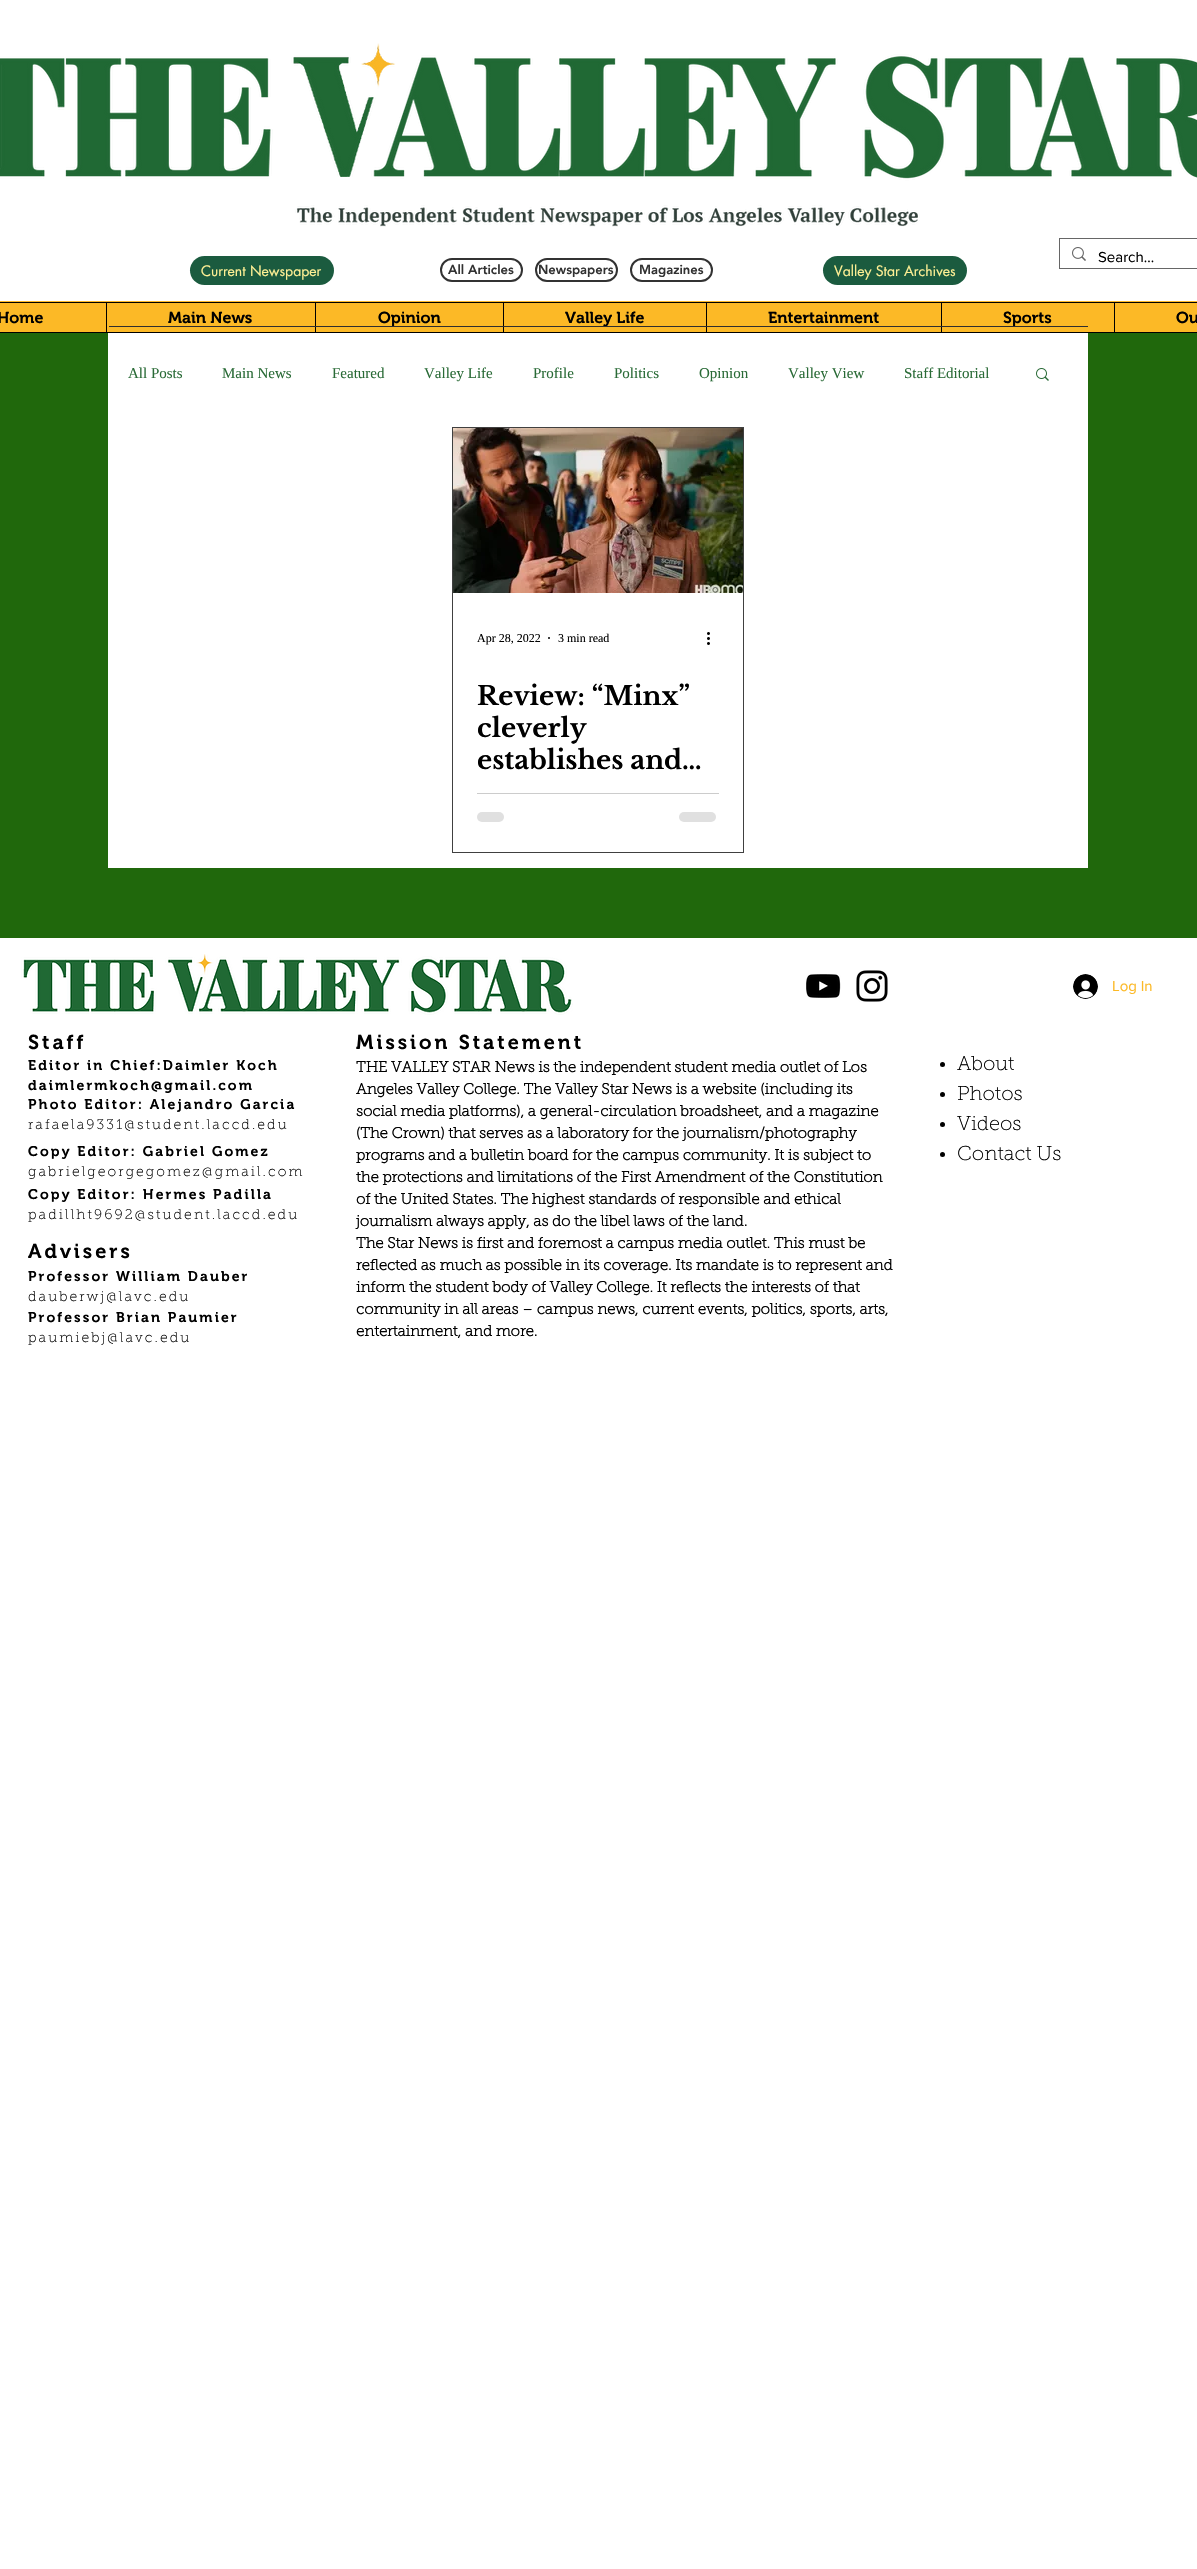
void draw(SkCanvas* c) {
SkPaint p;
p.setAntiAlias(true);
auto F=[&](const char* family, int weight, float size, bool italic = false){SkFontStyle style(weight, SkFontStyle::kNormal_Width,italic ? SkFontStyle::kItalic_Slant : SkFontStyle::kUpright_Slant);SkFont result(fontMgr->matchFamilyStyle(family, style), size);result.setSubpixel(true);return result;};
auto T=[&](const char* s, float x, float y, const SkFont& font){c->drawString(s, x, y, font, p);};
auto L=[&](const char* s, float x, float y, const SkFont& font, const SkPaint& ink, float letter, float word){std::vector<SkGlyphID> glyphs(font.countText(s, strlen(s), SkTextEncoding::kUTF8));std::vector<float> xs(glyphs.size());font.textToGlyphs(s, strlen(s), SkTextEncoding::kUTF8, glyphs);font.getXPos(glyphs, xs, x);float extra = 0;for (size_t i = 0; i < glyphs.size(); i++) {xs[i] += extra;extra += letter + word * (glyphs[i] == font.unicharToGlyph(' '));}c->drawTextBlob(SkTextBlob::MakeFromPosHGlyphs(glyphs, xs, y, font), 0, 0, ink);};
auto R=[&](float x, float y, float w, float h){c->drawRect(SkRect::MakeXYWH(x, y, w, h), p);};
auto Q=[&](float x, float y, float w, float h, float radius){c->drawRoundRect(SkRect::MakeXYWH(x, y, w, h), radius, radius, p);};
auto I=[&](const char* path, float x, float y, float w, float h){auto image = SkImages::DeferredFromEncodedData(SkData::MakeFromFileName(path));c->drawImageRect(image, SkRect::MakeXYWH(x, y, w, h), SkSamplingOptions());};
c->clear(0xffffffff);
I("1.png",0,43,1197,184);
p.setStroke(true);
p.setStrokeWidth(1);
p.setColor(0xff666666);
c->drawRect(SkRect::MakeXYWH(1059.5,238.5,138,30),p);
I("2.png",1072,247,14,14);
auto f1 = F("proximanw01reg",400,15);
p.setStroke(false);
p.setColor(0xff000000);
T("Search...",1098,262,f1);
p.setColor(0xff1b5b3f);
Q(190,256,144,29,14.5);
auto f2 = F("futura",400,14);
p.setColor(0xfffff094);
T("Current Newspaper",201,276,f2);
p.setStroke(true);
p.setStrokeWidth(2);
p.setColor(0xff323232);
c->drawRoundRect(SkRect::MakeXYWH(441,259,81,22),11,11,p);
auto f3 = F("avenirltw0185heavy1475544",900,13);
p.setStroke(false);
T("All Articles",448,274,f3);
p.setStroke(true);
c->drawRoundRect(SkRect::MakeXYWH(536,259,81,22),11,11,p);
p.setStroke(false);
T("Newspapers",538,274,f3);
p.setStroke(true);
c->drawRoundRect(SkRect::MakeXYWH(631,259,81,22),11,11,p);
p.setStroke(false);
T("Magazines",639,274,f3);
p.setColor(0xff1b5b3f);
Q(823,256,144,29,14.5);
p.setColor(0xfffff094);
T("Valley Star Archives",834,276,f2);
p.setColor(0xfffcb926);
R(0,301,1197,31);
p.setStroke(true);
p.setStrokeWidth(1);
p.setColor(0xff000000);
c->drawRect(SkRect::MakeXYWH(-.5,302.5,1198,30),p);
auto f4 = F("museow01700",600,16);
p.setStroke(false);
T("Home",-3,323,f4);
R(106,303,1,29);
T("Main News",168,323,f4);
R(315,303,1,29);
T("Opinion",378,323,f4);
R(503,303,1,29);
T("Valley Life",565,323,f4);
R(706,303,1,29);
T("Entertainment",768,323,f4);
R(941,303,1,29);
T("Sports",1003,323,f4);
R(1114,303,1,29);
T("Ou",1176,323,f4);
p.setColor(0xff20680c);
R(0,333,1197,605);
p.setColor(0xff2f2e2e);
R(109,326,979,1);
p.setColor(0xffffffff);
R(108,333,980,535);
auto f5 = F("Liberation Serif",400,15);
p.setColor(0xff2a6b37);
T("All Posts",128,378,f5);
T("Main News",222,378,f5);
T("Featured",332,378,f5);
T("Valley Life",424,378,f5);
T("Profile",533,378,f5);
T("Politics",614,378,f5);
T("Opinion",699,378,f5);
T("Valley View",788,378,f5);
T("Staff Editorial",904,378,f5);
I("3.png",1036,368,13,13);
p.setStroke(true);
p.setColor(0xff404040);
c->drawRect(SkRect::MakeXYWH(452.5,427.5,291,425),p);
I("4.png",453,428,290,165);
auto f6 = F("Liberation Serif",400,12);
p.setStroke(false);
p.setColor(0xff000000);
T("Apr 28, 2022",477,642,f6);
c->drawCircle(549,638,1,p);
T("3 min read",558,642,f6);
I("5.png",707,632,3,13);
auto f7 = F("Libre Baskerville",700,26);
T("Review: “Minx”",477,705,f7);
T("cleverly",477,737,f7);
T("establishes and…",477,769,f7);
p.setColor(0xffcccccc);
R(477,793,242,1);
p.setColor(0xffe0e0e0);
Q(477,812,27,10,5);
Q(679,812,37,10,5);
I("6.png",21,954,552,61);
I("7.png",806,974,35,24);
I("8.png",856,970,32,32);
I("9.png",1073,974,25,25);
p.setColor(0xfffcb926);
T("Log In",1112,991,f1);
auto f8 = F("museow01700",600,20);
p.setColor(0xff000000);
L("Staff",28,1049,f8,p,3,0);
L("Mission Statement",356,1049,f8,p,3,0);
auto f9 = F("museow01700",600,14);
L("Editor in Chief:Daimler Koch",28,1070,f9,p,2.1,0);
L("daimlermkoch@gmail.com",28,1090,f9,p,2.1,0);
L("Photo Editor: Alejandro Garcia",28,1109,f9,p,2.1,0);
auto f10 = F("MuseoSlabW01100",100,14);
L("rafaela9331@student.laccd.edu",28,1129,f10,p,2.1,0);
auto f11 = F("MuseoSlabW01100",700,15);
T("THE VALLEY STAR News is the independent student media outlet of Los",356,1072,f11);
T("Angeles Valley College. The Valley Star News is a website (including its",356,1094,f11);
T("social media platforms), a general-circulation broadsheet, and a magazine",356,1116,f11);
T("(The Crown) that serves as a laboratory for the journalism/photography",356,1138,f11);
T("programs and a bulletin board for the campus community. It is subject to",356,1160,f11);
T("the protections and limitations of the First Amendment of the Constitution",356,1182,f11);
T("of the United States. The highest standards of responsible and ethical",356,1204,f11);
T("journalism always apply, as do the libel laws of the land.",356,1226,f11);
T("The Star News is first and foremost a campus media outlet. This must be",356,1248,f11);
T("reflected as much as possible in its coverage. Its mandate is to represent and",356,1270,f11);
T("inform the student body of Valley College. It reflects the interests of that",356,1292,f11);
T("community in all areas – campus news, current events, politics, sports, arts,",356,1314,f11);
T("entertainment, and more.",356,1336,f11);
c->drawCircle(942.5,1064.5,2.5,p);
auto f12 = F("MuseoSlabW01100",100,20);
T("About",957,1070,f12);
c->drawCircle(942.5,1094.5,2.5,p);
T("Photos",957,1100,f12);
c->drawCircle(942.5,1124.5,2.5,p);
T("Videos",957,1130,f12);
c->drawCircle(942.5,1154.5,2.5,p);
T("Contact Us",957,1160,f12);
L("Copy Editor: Gabriel Gomez",28,1156,f9,p,2.1,0);
L("gabrielgeorgegomez@gmail.com",28,1176,f10,p,2.1,0);
L("Copy Editor: Hermes Padilla",28,1199,f9,p,2.1,0);
L("padillht9692@student.laccd.edu",28,1219,f10,p,2.1,0);
L("Advisers",28,1258,f8,p,3,0);
L("Professor William Dauber",28,1281,f9,p,2.1,0);
L("dauberwj@lavc.edu",28,1301,f10,p,2.1,0);
L("Professor Brian Paumier",28,1322,f9,p,2.1,0);
L("paumiebj@lavc.edu",28,1342,f10,p,2.1,0);
}
